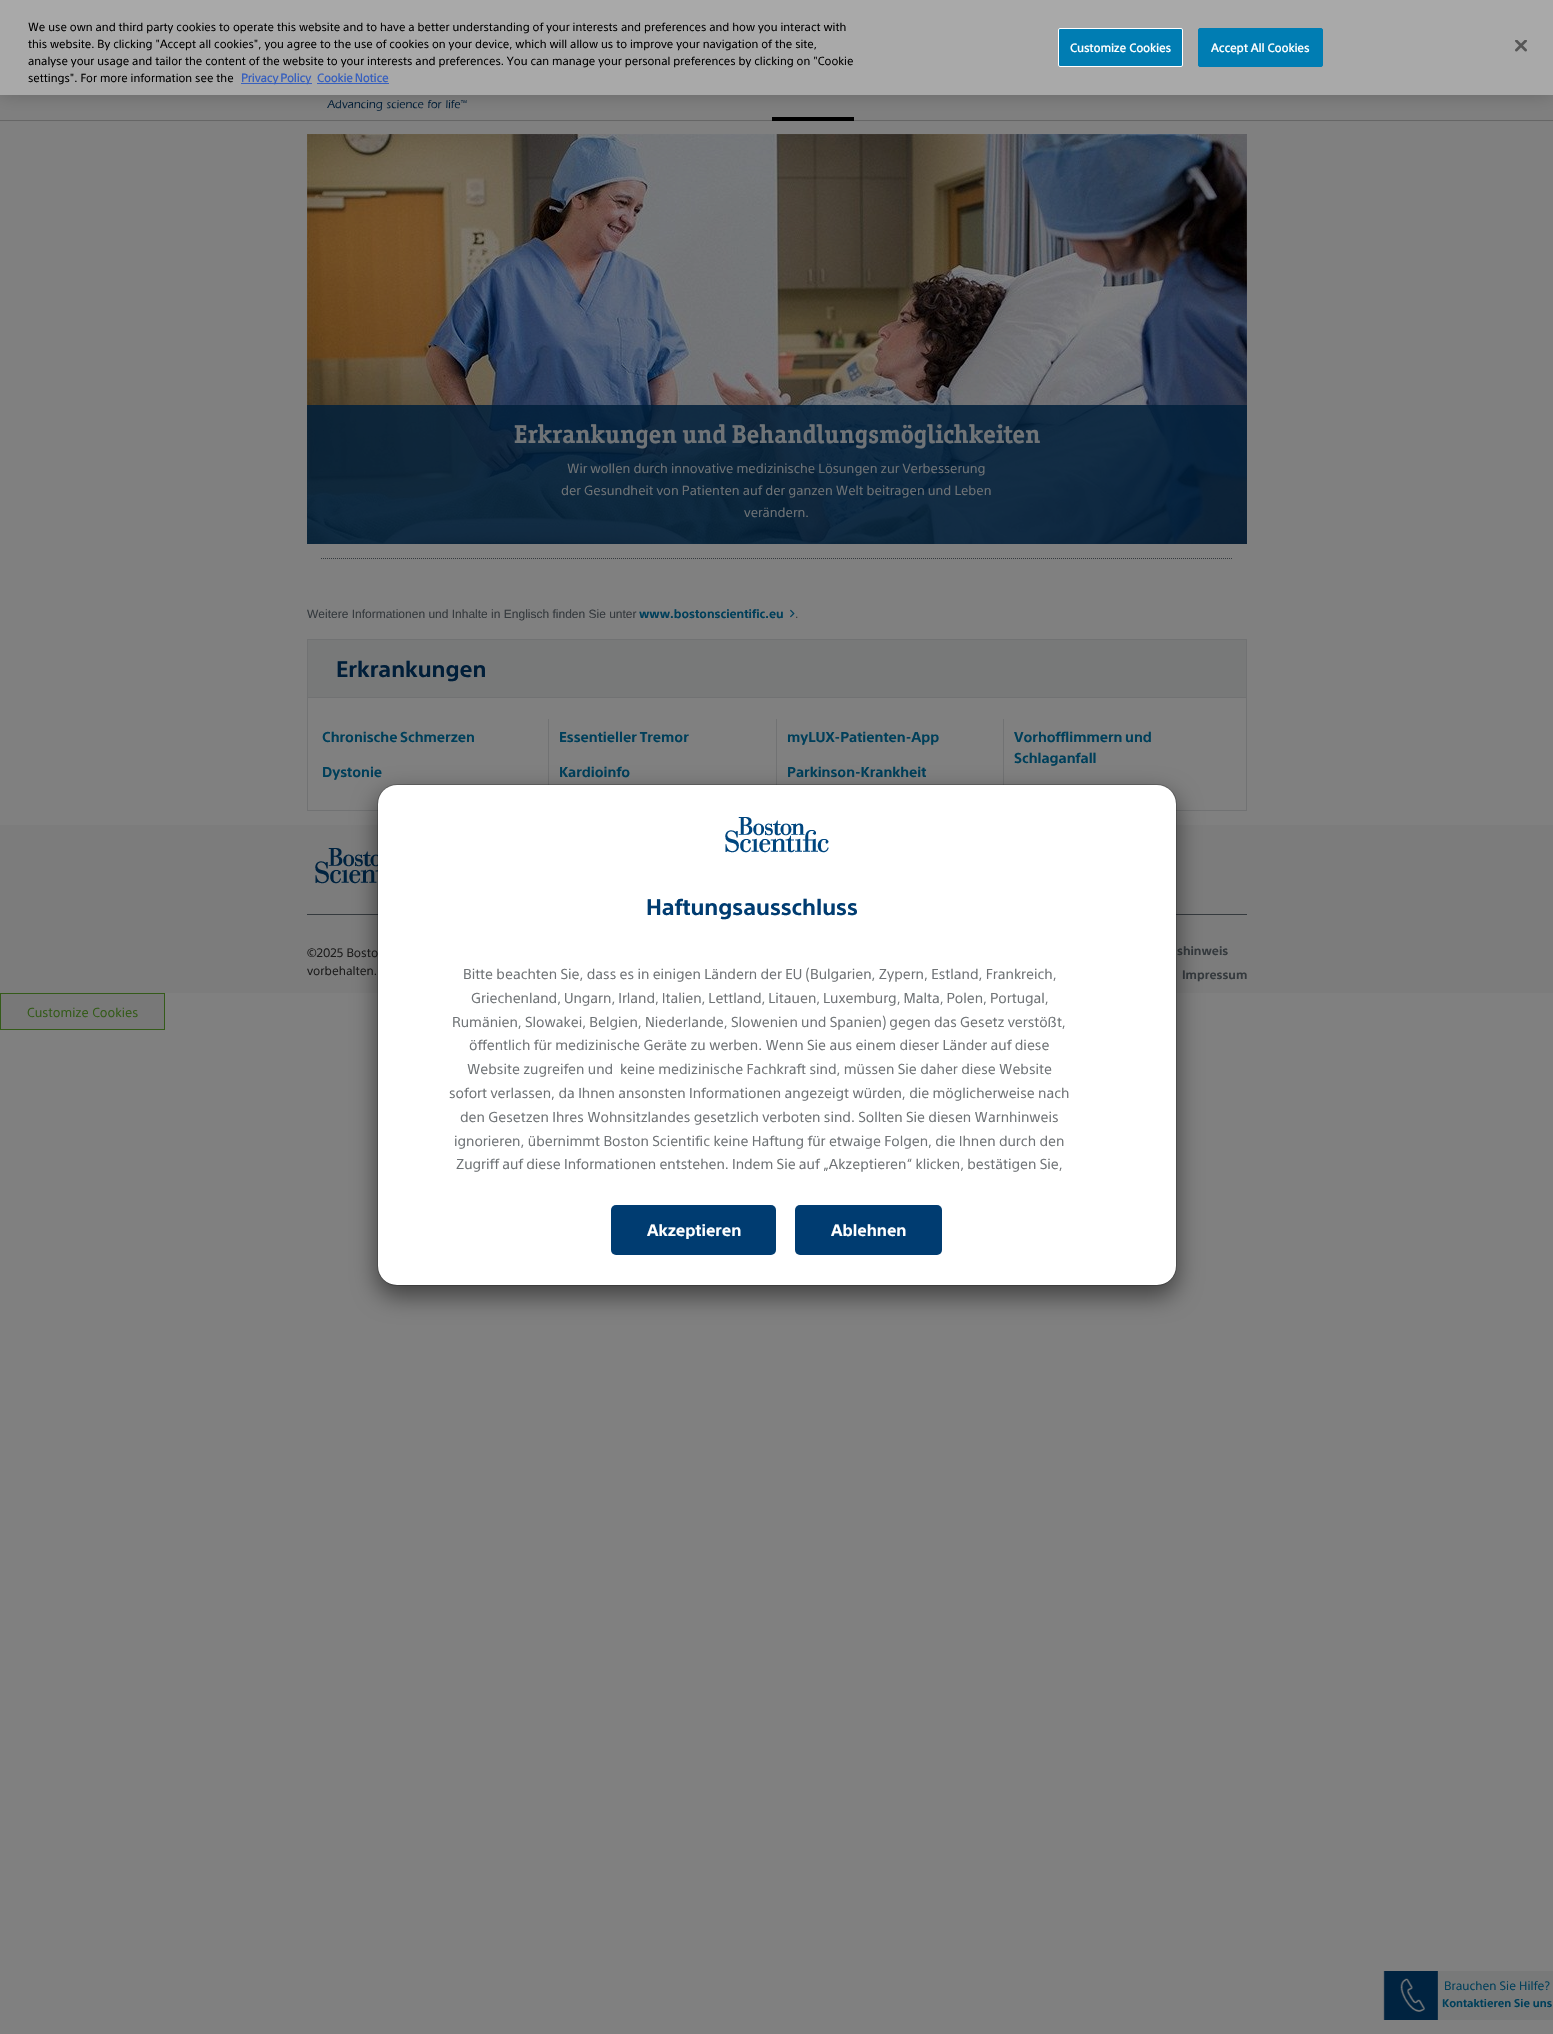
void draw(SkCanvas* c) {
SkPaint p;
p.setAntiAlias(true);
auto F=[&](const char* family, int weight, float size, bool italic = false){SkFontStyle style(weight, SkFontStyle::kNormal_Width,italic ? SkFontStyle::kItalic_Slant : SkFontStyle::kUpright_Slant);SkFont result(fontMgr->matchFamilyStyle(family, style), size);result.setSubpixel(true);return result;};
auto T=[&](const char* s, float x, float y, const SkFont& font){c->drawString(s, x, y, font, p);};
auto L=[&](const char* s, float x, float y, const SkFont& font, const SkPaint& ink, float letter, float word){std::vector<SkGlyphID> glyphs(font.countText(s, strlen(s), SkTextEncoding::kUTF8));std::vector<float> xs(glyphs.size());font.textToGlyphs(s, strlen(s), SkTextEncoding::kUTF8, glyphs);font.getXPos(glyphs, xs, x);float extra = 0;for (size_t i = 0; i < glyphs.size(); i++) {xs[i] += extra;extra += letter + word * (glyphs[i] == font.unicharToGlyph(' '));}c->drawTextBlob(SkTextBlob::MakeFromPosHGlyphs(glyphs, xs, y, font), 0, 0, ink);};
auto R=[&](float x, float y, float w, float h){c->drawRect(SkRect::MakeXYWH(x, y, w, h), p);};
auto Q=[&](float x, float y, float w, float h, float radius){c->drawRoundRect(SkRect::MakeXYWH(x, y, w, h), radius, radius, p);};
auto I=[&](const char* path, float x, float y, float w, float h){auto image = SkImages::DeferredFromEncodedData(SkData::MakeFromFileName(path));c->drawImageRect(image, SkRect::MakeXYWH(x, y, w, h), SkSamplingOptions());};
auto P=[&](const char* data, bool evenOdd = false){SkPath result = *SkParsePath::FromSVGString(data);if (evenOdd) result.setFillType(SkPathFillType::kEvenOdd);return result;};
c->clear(0xff808080);
p.setStroke(true);
p.setStrokeWidth(1);
p.setColor(0xff666666);
c->drawRect(SkRect::MakeXYWH(-.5,39.5,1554,81),p);
I("2.png",327,100,140,11);
p.setStroke(false);
p.setColor(0xff000000);
R(772,117,82,4);
p.setColor(0x33000000);
p.setMaskFilter(SkMaskFilter::MakeBlur(kNormal_SkBlurStyle, 9));
c->drawRect(SkRect::MakeXYWH(0,0,1553,95),p);
p.setMaskFilter(nullptr);
p.setColor(0xffa9a9a9);
R(0,0,1553,95);
auto f1 = F("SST",400,11.38);
p.setColor(0xff000000);
T("We use own and third party cookies to operate this website and to have a better understanding of your interests and preferences and how you interact with",28,31,f1);
T("this website. By clicking \"Accept all cookies\", you agree to the use of cookies on your device, which will allow us to improve your navigation of the site,",28,48,f1);
T("analyse your usage and tailor the content of the website to your interests and preferences. You can manage your personal preferences by clicking on \"Cookie",28,65,f1);
T("settings\". For more information see the",28,82,f1);
p.setColor(0xff3860be);
R(241,83,71,1);
auto f2 = F("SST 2",700,11.38);
L("Privacy Policy",241,82,f2,p,0,-1);
L("Cookie Notice",317,82,f2,p,0,-1);
R(317,83,72,1);
p.setColor(0xff007db3);
c->drawRoundRect(SkRect::MakeXYWH(1058.5,28.5,124,38),1.5,1.5,p);
p.setStroke(true);
p.setColor(0xffffffff);
c->drawRoundRect(SkRect::MakeXYWH(1058.5,28.5,124,38),1.5,1.5,p);
p.setStroke(false);
L("Customize Cookies",1070,52,f2,p,.1,0);
p.setColor(0xff007db3);
c->drawRoundRect(SkRect::MakeXYWH(1198.5,28.5,124,38),1.5,1.5,p);
p.setStroke(true);
c->drawRoundRect(SkRect::MakeXYWH(1198.5,28.5,124,38),1.5,1.5,p);
p.setStroke(false);
p.setColor(0xffffffff);
L("Accept All Cookies",1211,52,f2,p,.1,0);
I("1.png",1515,40,12,12);
I("3.png",307,134,940,410);
p.setColor(0xd9001e39);
R(307,405,940,139);
auto f3 = F("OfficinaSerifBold",700,26);
p.setColor(0xff6f7376);
T("Erkrankungen und Behandlungsmöglichkeiten",514,443,f3);
auto f4 = F("SST",400,13);
L("Wir wollen durch innovative medizinische Lösungen zur Verbesserung",567,473,f4,p,0,-.25);
L("der Gesundheit von Patienten auf der ganzen Welt beitragen und Leben",561,495,f4,p,0,-.25);
T("verändern.",744,517,f4);
p.setStroke(true);
p.setColor(0xff353a3e);
p.setPathEffect(SkDashPathEffect::Make({{1,1}}, 0));
c->drawPath(P("M321 558.5h912"),p);
p.setPathEffect(nullptr);
auto f5 = F("Liberation Sans",400,12);
p.setStroke(false);
T("Weitere Informationen und Inhalte in Englisch finden Sie unter",307,618,f5);
auto f6 = F("SST",700,12);
p.setColor(0xff003f5a);
T("www.bostonscientific.eu",639,618,f6);
I("4.png",790,609,5,9);
p.setColor(0xff353a3e);
T(".",795,618,f5);
p.setStroke(true);
p.setColor(0xff717273);
c->drawRect(SkRect::MakeXYWH(307.5,639.5,939,171),p);
p.setStroke(false);
p.setColor(0xff787979);
R(308,640,938,57);
auto f7 = F("SST",700,22);
p.setColor(0xff001e39);
T("Erkrankungen",336,677,f7);
p.setColor(0xff717273);
R(308,697,938,1);
R(548,719,1,70);
auto f8 = F("SST",700,14);
p.setColor(0xff003f5a);
L("Chronische Schmerzen",322,742,f8,p,0,-1);
T("Dystonie",322,777,f8);
p.setColor(0xff717273);
R(776,719,1,70);
p.setColor(0xff003f5a);
L("Essentieller Tremor",559,742,f8,p,0,-.75);
T("Kardioinfo",559,777,f8);
p.setColor(0xff717273);
R(1003,719,1,70);
p.setColor(0xff003f5a);
T("myLUX-Patienten-App",787,742,f8);
T("Parkinson-Krankheit",787,777,f8);
L("Vorhofflimmern und",1014,742,f8,p,0,-1);
T("Schlaganfall",1014,763,f8);
p.setColor(0xff7c7c7c);
R(0,825,1553,168);
I("5.png",315,848,63,36);
p.setColor(0xff353a3e);
R(307,914,940,1);
auto f9 = F("SST",400,12);
p.setColor(0xff1c1c1c);
T("©2025 Bosto",307,957,f9);
T("vorbehalten.",307,975,f9);
p.setColor(0xff353a3e);
T("shinweis",1177,955,f6);
T("Impressum",1182,979,f6);
p.setColor(0xff787878);
c->drawRect(SkRect::MakeXYWH(.5,993.5,164,36),p);
p.setStroke(true);
p.setColor(0xff345b19);
c->drawRect(SkRect::MakeXYWH(.5,993.5,164,36),p);
auto f10 = F("SST",400,12.75);
p.setStroke(false);
T("Customize Cookies",27,1017,f10);
p.setColor(0x80000000);
p.setMaskFilter(SkMaskFilter::MakeBlur(kNormal_SkBlurStyle, 12.5));
c->drawRoundRect(SkRect::MakeXYWH(377,794,800,502),20,20,p);
p.setMaskFilter(nullptr);
p.setColor(0xffffffff);
Q(378,785,798,500,19);
p.setStroke(true);
p.setColor(0x33000000);
c->drawRoundRect(SkRect::MakeXYWH(377.5,784.5,799,501),19.5,19.5,p);
I("6.png",725,817,104,36);
p.setStroke(false);
p.setColor(0xff003c71);
T("Haftungsausschluss",646,915,f7);
auto f11 = F("SST",400,14);
p.setColor(0xff6f7376);
L("Bitte beachten Sie, dass es in einigen Ländern der EU (Bulgarien, Zypern, Estland, Frankreich,",463,979,f11,p,0,-.3);
L("Griechenland, Ungarn, Irland, Italien, Lettland, Litauen, Luxemburg, Malta, Polen, Portugal,",471,1003,f11,p,0,-.75);
L("Rumänien, Slowakei, Belgien, Niederlande, Slowenien und Spanien) gegen das Gesetz verstößt,",452,1027,f11,p,0,-.4);
L("öffentlich für medizinische Geräte zu werben. Wenn Sie aus einem dieser Länder auf diese",469,1050,f11,p,0,-.2);
L("Website zugreifen und  keine medizinische Fachkraft sind, müssen Sie daher diese Website",467,1074,f11,p,0,-.25);
L("sofort verlassen, da Ihnen ansonsten Informationen angezeigt würden, die möglicherweise nach",449,1098,f11,p,0,-.25);
L("den Gesetzen Ihres Wohnsitzlandes gesetzlich verboten sind. Sollten Sie diesen Warnhinweis",460,1122,f11,p,0,-.25);
L("ignorieren, übernimmt Boston Scientific keine Haftung für etwaige Folgen, die Ihnen durch den",454,1146,f11,p,0,-.25);
L("Zugriff auf diese Informationen entstehen. Indem Sie auf „Akzeptieren“ klicken, bestätigen Sie,",456,1169,f11,p,0,-.4);
p.setColor(0xff003c71);
Q(611,1205,165,50,5);
auto f12 = F("SST",700,16);
p.setColor(0xffffffff);
T("Akzeptieren",647,1236,f12);
p.setColor(0xff003c71);
Q(795,1205,147,50,5);
p.setColor(0xffffffff);
T("Ablehnen",831,1236,f12);
I("7.png",1383,1971,55,49);
p.setColor(0xff787979);
R(1438,1971,115,49);
p.setColor(0xff003f5a);
T("Brauchen Sie Hilfe?",1444,1990,f9);
auto f13 = F("SST",700,11);
T("Kontaktieren Sie uns",1442,2007,f13);
}
